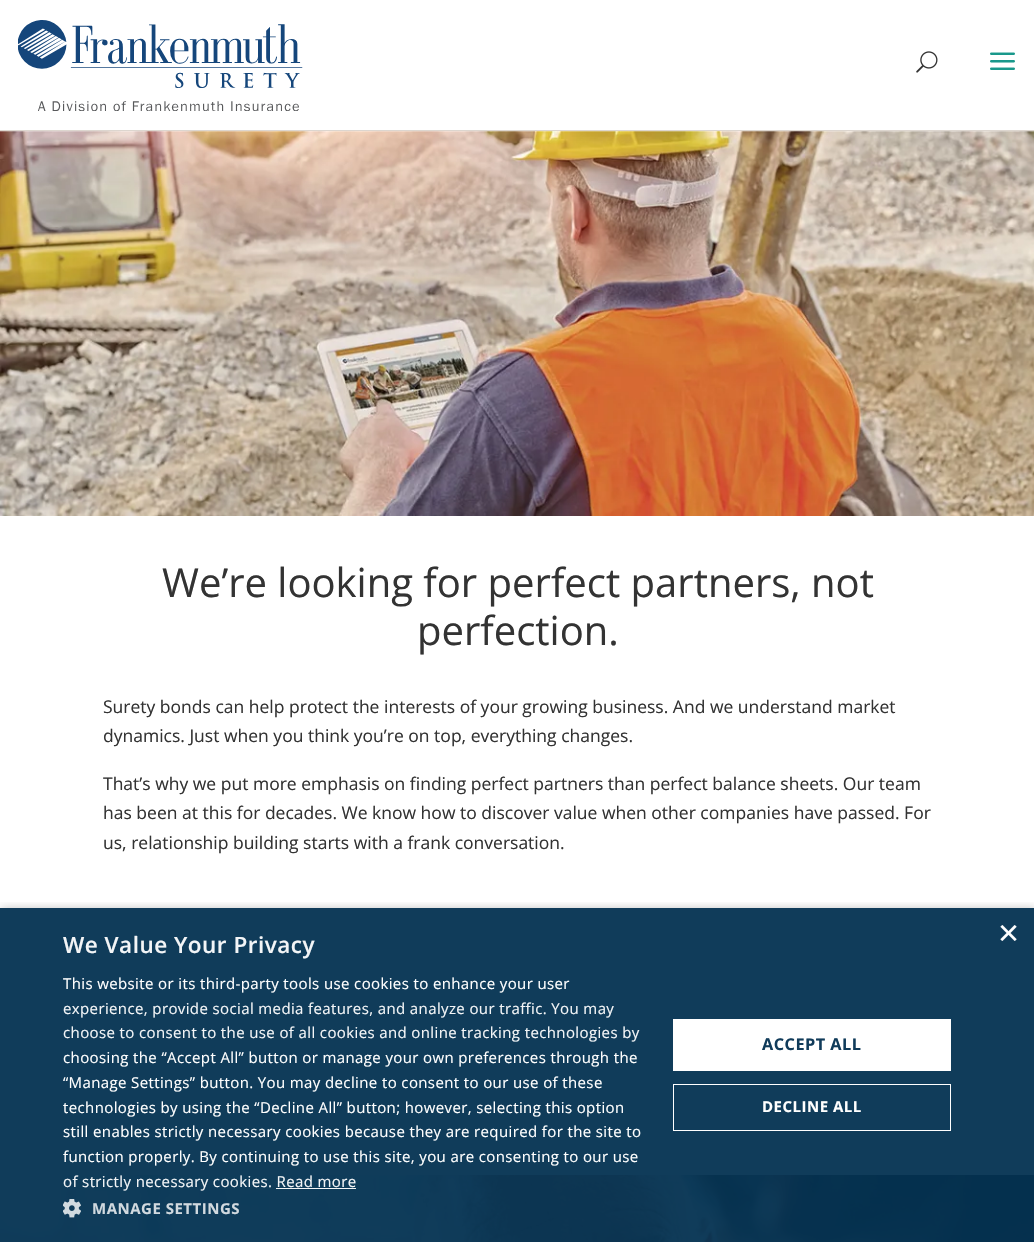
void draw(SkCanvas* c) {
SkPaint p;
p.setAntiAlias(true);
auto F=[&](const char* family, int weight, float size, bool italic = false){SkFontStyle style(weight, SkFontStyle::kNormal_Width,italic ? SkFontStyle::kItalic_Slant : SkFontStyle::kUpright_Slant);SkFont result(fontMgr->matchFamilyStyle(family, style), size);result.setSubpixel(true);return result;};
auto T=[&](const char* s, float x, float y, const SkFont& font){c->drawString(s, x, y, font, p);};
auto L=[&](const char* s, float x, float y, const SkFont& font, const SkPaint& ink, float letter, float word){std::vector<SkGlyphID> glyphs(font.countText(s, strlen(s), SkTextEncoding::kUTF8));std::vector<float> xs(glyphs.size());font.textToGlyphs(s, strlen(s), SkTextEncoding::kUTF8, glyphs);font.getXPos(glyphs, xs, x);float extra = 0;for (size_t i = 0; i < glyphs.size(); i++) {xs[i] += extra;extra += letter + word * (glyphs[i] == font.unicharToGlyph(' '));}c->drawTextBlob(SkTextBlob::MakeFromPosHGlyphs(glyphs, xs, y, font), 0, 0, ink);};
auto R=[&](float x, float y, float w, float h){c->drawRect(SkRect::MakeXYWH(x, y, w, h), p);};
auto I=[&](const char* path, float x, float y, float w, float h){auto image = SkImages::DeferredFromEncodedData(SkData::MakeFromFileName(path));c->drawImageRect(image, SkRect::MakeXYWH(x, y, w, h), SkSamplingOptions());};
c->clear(0xffffffff);
p.setColor(0xffddd6cf);
R(0,130,1034,1);
I("1.png",18,20,285,91);
I("2.png",916,51,22,22);
I("3.png",990,52,25,18);
I("4.png",0,131,1034,385);
auto f1 = F("Open Sans",400,40);
p.setColor(0xff333333);
T("We’re looking for perfect partners, not",162,597,f1);
T("perfection.",417,645,f1);
auto f2 = F("Open Sans",400,17.5);
T("Surety bonds can help protect the interests of your growing business. And we understand market",103,713,f2);
T("dynamics. Just when you think you’re on top, everything changes.",103,742,f2);
T("That’s why we put more emphasis on finding perfect partners than perfect balance sheets. Our team",103,790,f2);
T("has been at this for decades. We know how to discover value when other companies have passed. For",103,819,f2);
T("us, relationship building starts with a frank conversation.",103,849,f2);
I("5.png",0,1175,1034,67);
c->save();
c->clipRect(SkRect::MakeXYWH(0,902,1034,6));
p.setColor(0x54000000);
p.setMaskFilter(SkMaskFilter::MakeBlur(kNormal_SkBlurStyle, 5));
c->drawRect(SkRect::MakeXYWH(1,910,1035,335),p);
p.setMaskFilter(nullptr);
c->restore();
p.setColor(0xf2033151);
R(0,908,1034,334);
auto f3 = F("Liberation Sans",400,36);
p.setColor(0xffffffff);
T("×",998,945,f3);
auto f4 = F("Open Sans",600,22.5);
p.setColor(0xfff3f5f7);
L("We Value Your Privacy",63,953,f4,p,.5,0);
auto f5 = F("Open Sans",400,15);
p.setColor(0xffffffff);
L("This website or its third-party tools use cookies to enhance your user",63,989,f5,p,.38,0);
p.setColor(0xfff3f5f7);
L("experience, provide social media features, and analyze our traffic. You may",63,1014,f5,p,.38,0);
L("choose to consent to the use of all cookies and online tracking technologies by",63,1038,f5,p,.38,0);
p.setColor(0xffffffff);
L("choosing the “Accept All” button or manage your own preferences through the",63,1063,f5,p,.38,0);
L("“Manage Settings” button. You may decline to consent to our use of these",63,1088,f5,p,.38,0);
L("technologies by using the “Decline All” button; however, selecting this option",63,1113,f5,p,.38,0);
L("still enables strictly necessary cookies because they are required for the site to",63,1137,f5,p,.38,0);
L("function properly. By continuing to use this site, you are consenting to our use",63,1162,f5,p,.38,0);
p.setColor(0xfff3f5f7);
L("of strictly necessary cookies. Read more",63,1187,f5,p,.38,0);
R(276,1188,80,1);
I("6.png",63,1199,18,19);
auto f6 = F("Open Sans",700,15);
p.setColor(0xffd1d9df);
L("MANAGE SETTINGS",92,1214,f6,p,.5,0);
p.setColor(0xffffffff);
R(673,1019,278,52);
auto f7 = F("Open Sans",700,16.25);
p.setColor(0xff103b5a);
L("ACCEPT ALL",762,1050,f7,p,.5,0);
p.setStroke(true);
p.setStrokeWidth(1);
p.setColor(0xffffffff);
c->drawRect(SkRect::MakeXYWH(673.5,1084.5,277,46),p);
p.setStroke(false);
L("DECLINE ALL",762,1112,f6,p,.5,0);
}
